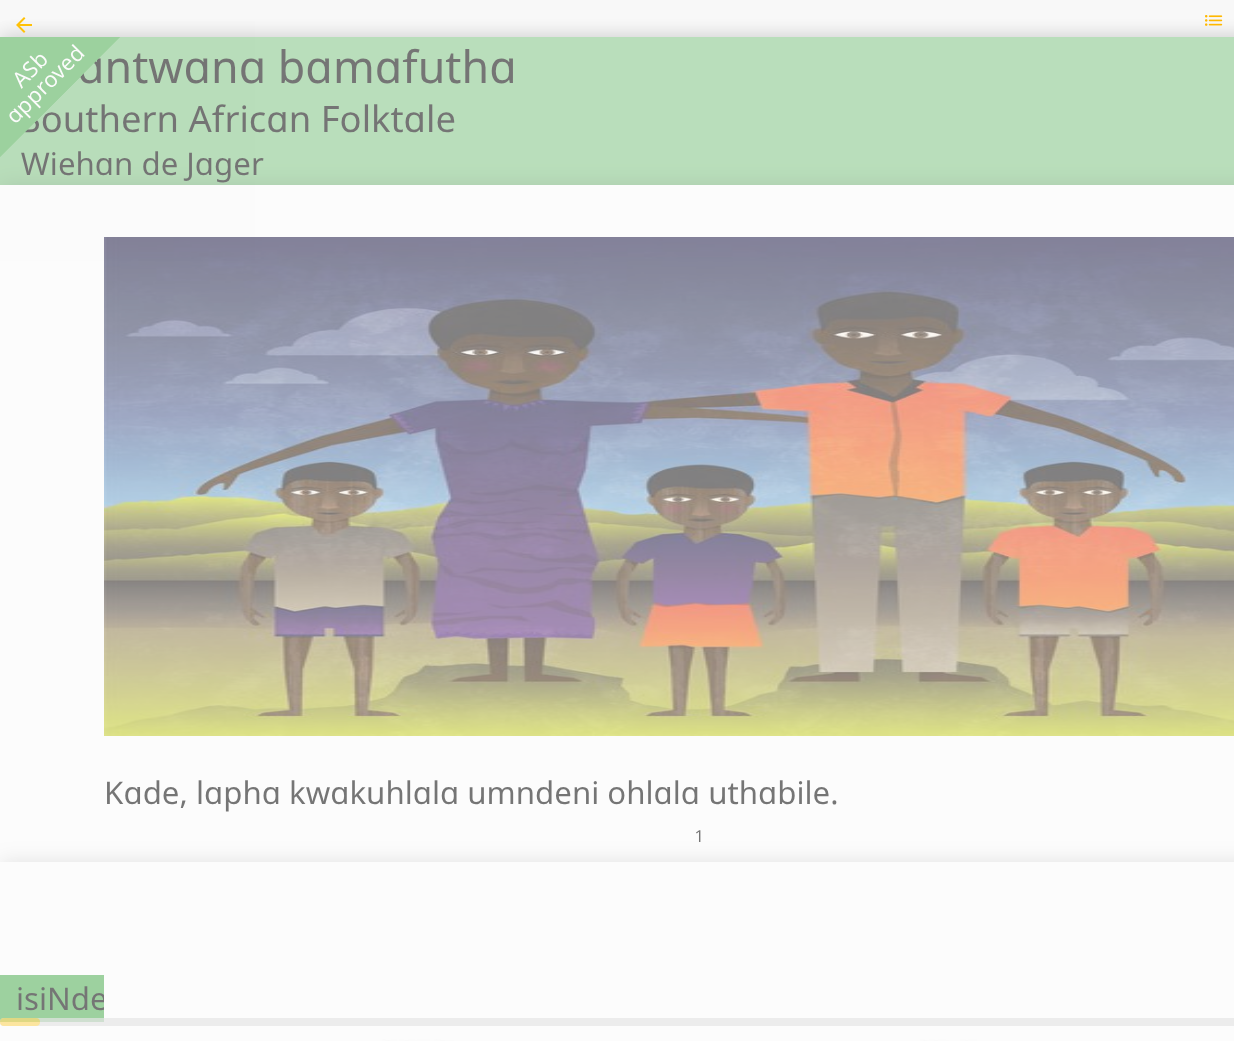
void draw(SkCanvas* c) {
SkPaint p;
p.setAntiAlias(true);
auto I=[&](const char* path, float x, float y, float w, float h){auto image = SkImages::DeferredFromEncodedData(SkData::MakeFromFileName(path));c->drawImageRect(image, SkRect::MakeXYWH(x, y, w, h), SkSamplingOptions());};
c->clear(0xffffffff);
I("1.png",0,0,1234,1041);
I("2.png",16,17,16,16);
I("3.png",1205,15,18,11);
}
